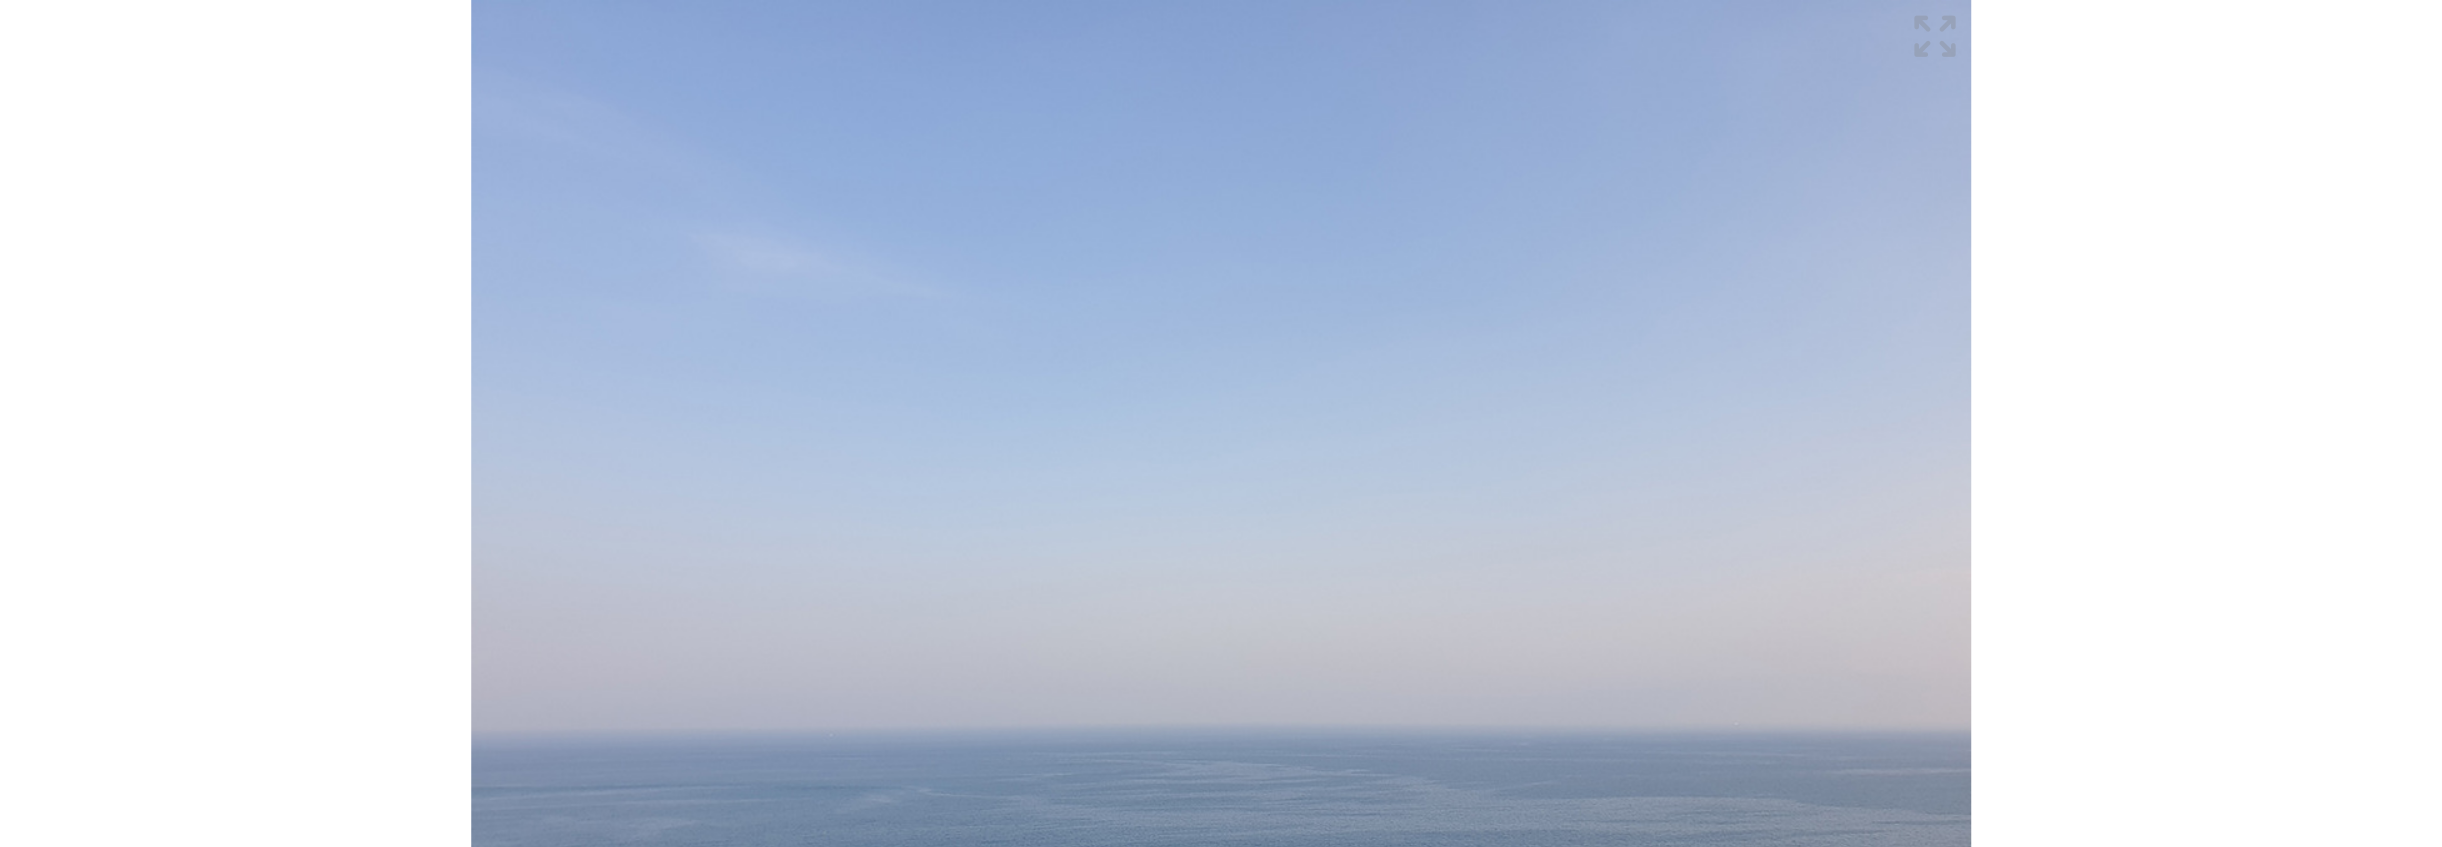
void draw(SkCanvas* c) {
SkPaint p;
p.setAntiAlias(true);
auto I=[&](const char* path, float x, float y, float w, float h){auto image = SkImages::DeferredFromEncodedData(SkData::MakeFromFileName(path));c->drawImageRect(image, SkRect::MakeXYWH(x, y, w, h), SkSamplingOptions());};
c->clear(0xffffffff);
I("1.png",471,0,1501,847);
I("2.png",1914,15,42,42);
}
